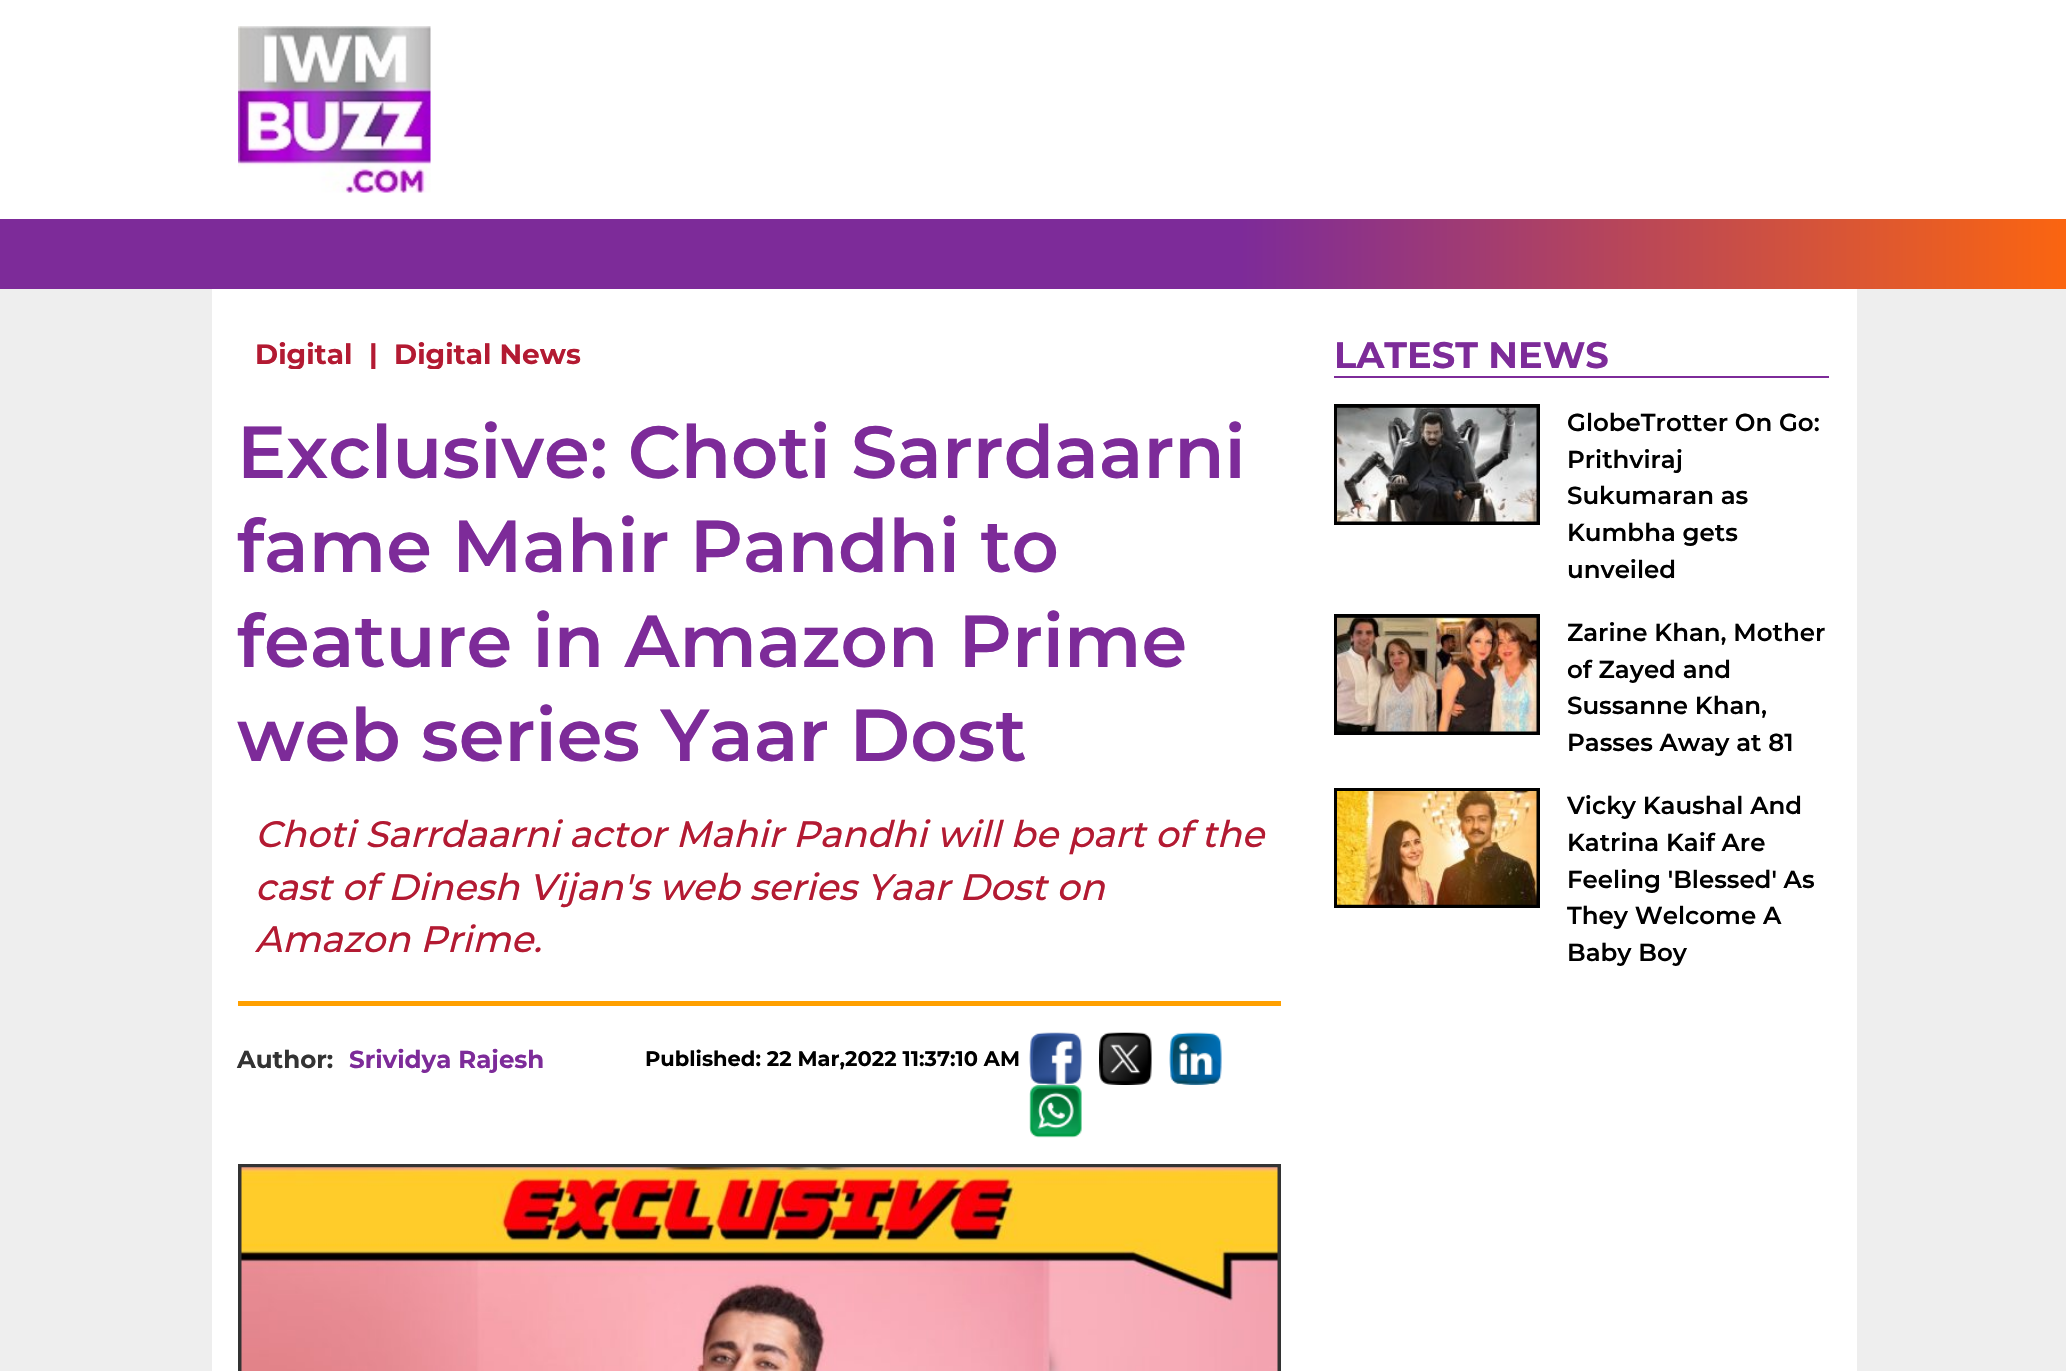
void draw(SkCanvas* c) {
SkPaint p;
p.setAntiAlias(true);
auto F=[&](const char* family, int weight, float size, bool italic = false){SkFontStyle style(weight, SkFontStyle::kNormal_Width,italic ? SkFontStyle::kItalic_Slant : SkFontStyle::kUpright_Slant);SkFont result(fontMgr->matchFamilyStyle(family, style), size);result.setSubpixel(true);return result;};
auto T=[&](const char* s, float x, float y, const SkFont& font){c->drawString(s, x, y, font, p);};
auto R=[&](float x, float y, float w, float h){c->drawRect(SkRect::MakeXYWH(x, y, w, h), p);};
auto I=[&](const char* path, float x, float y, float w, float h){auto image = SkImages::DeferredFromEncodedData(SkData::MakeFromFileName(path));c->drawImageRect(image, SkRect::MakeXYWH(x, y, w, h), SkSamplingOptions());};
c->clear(0xffeeeeee);
p.setColor(0xffffffff);
R(0,0,2066,219);
I("1.png",238,26,193,167);
{
const SkColor colors[] = {0xff7d2b99,0xfffb6510};
const float stops[] = {.6,1};
const SkPoint ends[] = {{0,254}, {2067,254}};
p.setShader(SkGradientShader::MakeLinear(ends, colors, stops, 2, SkTileMode::kClamp));
p.setAlpha(255);
}
R(0,219,2066,70);
p.setShader(nullptr);
p.setColor(0xffffffff);
R(212,289,1645,1082);
c->save();
c->clipRect(SkRect::MakeXYWH(247,341,343,28));
auto f1 = F("Montserrat",700,28);
p.setColor(0xffb31a32);
T("Digital",255,364,f1);
T("|",369,364,f1);
T("Digital News",394,364,f1);
c->restore();
auto f2 = F("Montserrat",600,73.5);
p.setColor(0xff7d2b99);
T("Exclusive: Choti Sarrdaarni",237,478,f2);
T("fame Mahir Pandhi to",237,572,f2);
T("feature in Amazon Prime",237,667,f2);
T("web series Yaar Dost",237,761,f2);
auto f3 = F("Montserrat",500,36.75,true);
p.setColor(0xffb31a32);
T("Choti Sarrdaarni actor Mahir Pandhi will be part of the",255,847,f3);
T("cast of Dinesh Vijan's web series Yaar Dost on",255,900,f3);
T("Amazon Prime.",255,952,f3);
p.setColor(0xffffa000);
R(238,1001,1043,5);
auto f4 = F("Montserrat",700,24.5);
p.setColor(0xff333333);
T("Author:",237,1068,f4);
p.setColor(0xff7d2b99);
T("Srividya Rajesh",349,1068,f4);
auto f5 = F("Montserrat",700,21);
p.setColor(0xff000000);
T("Published: 22 Mar,2022 11:37:10 AM",645,1066,f5);
I("2.png",1029,1032,53,53);
I("3.png",1099,1032,53,53);
I("4.png",1169,1032,53,53);
I("5.png",1029,1085,53,53);
p.setStroke(true);
p.setStrokeWidth(4);
p.setColor(0xff333333);
c->drawRect(SkRect::MakeXYWH(240,1166,1039,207),p);
I("6.png",241,1167,1037,204);
p.setStroke(false);
p.setColor(0xff7d2b99);
R(1334,376,495,2);
auto f6 = F("Montserrat",700,36.75);
T("LATEST NEWS",1334,368,f6);
p.setStroke(true);
p.setColor(0xff000000);
c->drawRect(SkRect::MakeXYWH(1336,406,202,117),p);
I("7.png",1337,407,200,115);
auto f7 = F("Montserrat",600,24.5);
p.setStroke(false);
T("GlobeTrotter On Go:",1567,431,f7);
T("Prithviraj",1567,468,f7);
T("Sukumaran as",1567,504,f7);
T("Kumbha gets",1567,541,f7);
T("unveiled",1567,578,f7);
p.setStroke(true);
c->drawRect(SkRect::MakeXYWH(1336,616,202,117),p);
I("8.png",1337,617,200,115);
p.setStroke(false);
T("Zarine Khan, Mother",1567,641,f7);
T("of Zayed and",1567,678,f7);
T("Sussanne Khan,",1567,714,f7);
T("Passes Away at 81",1567,751,f7);
p.setStroke(true);
c->drawRect(SkRect::MakeXYWH(1336,790,202,116),p);
I("9.png",1337,791,200,114);
p.setStroke(false);
T("Vicky Kaushal And",1567,814,f7);
T("Katrina Kaif Are",1567,851,f7);
T("Feeling 'Blessed' As",1567,888,f7);
T("They Welcome A",1567,924,f7);
T("Baby Boy",1567,961,f7);
}
